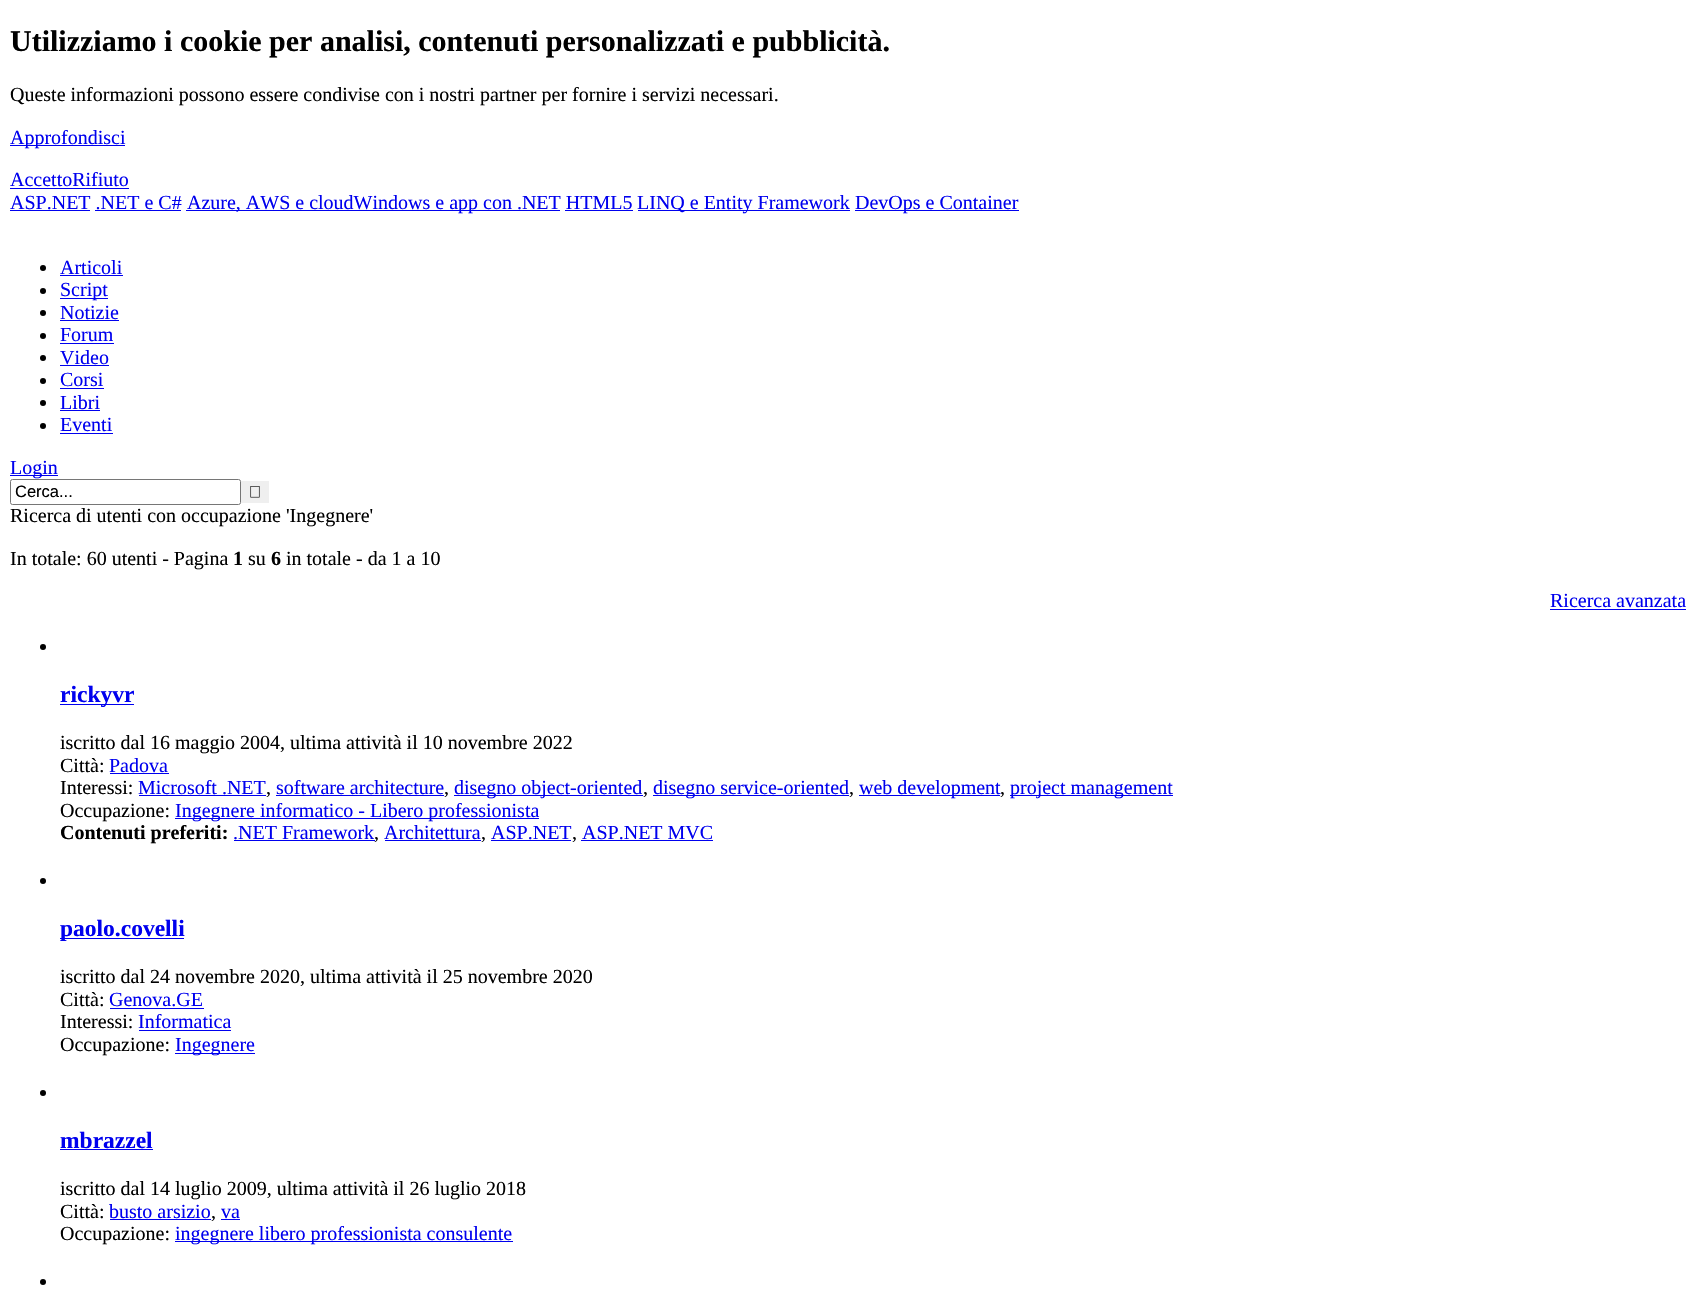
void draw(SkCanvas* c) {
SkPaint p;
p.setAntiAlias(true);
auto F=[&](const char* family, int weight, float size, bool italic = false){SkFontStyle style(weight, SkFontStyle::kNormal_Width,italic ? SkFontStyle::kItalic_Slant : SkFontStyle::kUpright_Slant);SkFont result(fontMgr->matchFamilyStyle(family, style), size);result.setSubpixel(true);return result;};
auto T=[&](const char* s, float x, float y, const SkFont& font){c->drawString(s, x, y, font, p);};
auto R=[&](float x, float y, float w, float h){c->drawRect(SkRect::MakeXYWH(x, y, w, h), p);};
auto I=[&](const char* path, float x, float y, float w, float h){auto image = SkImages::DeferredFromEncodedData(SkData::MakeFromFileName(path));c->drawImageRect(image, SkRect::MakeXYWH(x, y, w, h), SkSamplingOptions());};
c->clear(0xffffffff);
auto f1 = F("Liberation Serif",700,30);
p.setColor(0xff000000);
T("Utilizziamo i cookie per analisi, contenuti personalizzati e pubblicità.",10,51,f1);
auto f2 = F("Liberation Serif",400,20);
T("Queste informazioni possono essere condivise con i nostri partner per fornire i servizi necessari.",10,101,f2);
p.setColor(0xff0000ee);
R(10,145,115,1);
T("Approfondisci",10,144,f2);
T("AccettoRifiuto",10,186,f2);
R(10,188,119,1);
T("ASP.NET .NET e C#",10,209,f2);
R(10,210,80,1);
R(186,210,374,1);
T("Azure, AWS e cloudWindows e app con .NET HTML5",187,209,f2);
R(638,210,212,1);
T("LINQ e Entity Framework",637,209,f2);
R(855,210,164,1);
T("DevOps e Container",855,209,f2);
R(95,210,86,1);
R(565,210,68,1);
p.setColor(0xff000000);
c->drawCircle(43,268,3,p);
p.setColor(0xff0000ee);
T("Articoli",60,274,f2);
R(60,275,63,1);
p.setColor(0xff000000);
c->drawCircle(43,291,3,p);
p.setColor(0xff0000ee);
R(60,298,48,1);
T("Script",60,296,f2);
p.setColor(0xff000000);
c->drawCircle(43,313,3,p);
p.setColor(0xff0000ee);
T("Notizie",60,319,f2);
R(60,320,59,1);
p.setColor(0xff000000);
c->drawCircle(43,336,3,p);
p.setColor(0xff0000ee);
T("Forum",60,341,f2);
R(60,343,54,1);
p.setColor(0xff000000);
c->drawCircle(43,358,3,p);
p.setColor(0xff0000ee);
T("Video",60,364,f2);
R(60,365,49,1);
p.setColor(0xff000000);
c->drawCircle(43,381,3,p);
p.setColor(0xff0000ee);
T("Corsi",60,386,f2);
R(60,388,44,1);
p.setColor(0xff000000);
c->drawCircle(43,403,3,p);
p.setColor(0xff0000ee);
T("Libri",60,409,f2);
R(60,410,40,1);
p.setColor(0xff000000);
c->drawCircle(43,426,3,p);
p.setColor(0xff0000ee);
T("Eventi",60,431,f2);
R(60,433,53,1);
R(10,475,48,1);
T("Login",10,474,f2);
p.setStroke(true);
p.setStrokeWidth(1);
p.setColor(0xff767676);
c->drawRoundRect(SkRect::MakeXYWH(10.5,479.5,230,25),2,2,p);
auto f3 = F("Liberation Sans",400,16.5);
p.setStroke(false);
p.setColor(0xff000000);
T("Cerca...",15,497,f3);
p.setColor(0xffefefef);
R(241,481,28,22);
I("1.png",250,486,10,12);
p.setColor(0xff000000);
T("Ricerca di utenti con occupazione 'Ingegnere'",10,522,f2);
T("In totale: 60 utenti - Pagina",10,565,f2);
auto f4 = F("Liberation Serif",700,20);
T("1",233,565,f4);
T("su",248,565,f2);
T("6",271,565,f4);
T("in totale - da 1 a 10",286,565,f2);
p.setColor(0xff0000ee);
T("Ricerca avanzata",1550,607,f2);
R(1550,609,136,1);
p.setColor(0xff000000);
c->drawCircle(43,647,3,p);
p.setColor(0xff0000ee);
R(60,704,74,1);
auto f5 = F("Liberation Serif",700,23.5);
T("rickyvr",60,702,f5);
p.setColor(0xff000000);
T("iscritto dal 16 maggio 2004, ultima attività il 10 novembre 2022",60,749,f2);
T("Città:",60,772,f2);
p.setColor(0xff0000ee);
T("Padova",109,772,f2);
R(110,773,59,1);
p.setColor(0xff000000);
T("Interessi:",60,794,f2);
p.setColor(0xff0000ee);
T("Microsoft .NET",138,794,f2);
R(139,795,127,1);
p.setColor(0xff000000);
T(",",266,794,f2);
p.setColor(0xff0000ee);
T("software architecture",276,794,f2);
R(276,795,168,1);
p.setColor(0xff000000);
T(",",444,794,f2);
p.setColor(0xff0000ee);
R(454,795,189,1);
T("disegno object-oriented",454,794,f2);
p.setColor(0xff000000);
T(",",643,794,f2);
p.setColor(0xff0000ee);
R(653,795,196,1);
T("disegno service-oriented",653,794,f2);
p.setColor(0xff000000);
T(",",849,794,f2);
p.setColor(0xff0000ee);
R(859,795,141,1);
T("web development",859,794,f2);
p.setColor(0xff000000);
T(",",1000,794,f2);
p.setColor(0xff0000ee);
R(1010,795,163,1);
T("project management",1010,794,f2);
p.setColor(0xff000000);
T("Occupazione:",60,817,f2);
p.setColor(0xff0000ee);
R(175,818,364,1);
T("Ingegnere informatico - Libero professionista",175,817,f2);
p.setColor(0xff000000);
T("Contenuti preferiti:",60,839,f4);
p.setColor(0xff0000ee);
T(".NET Framework",233,839,f2);
R(234,840,141,1);
p.setColor(0xff000000);
T(",",374,839,f2);
p.setColor(0xff0000ee);
T("Architettura",384,839,f2);
R(385,840,96,1);
p.setColor(0xff000000);
T(",",481,839,f2);
p.setColor(0xff0000ee);
T("ASP.NET",491,839,f2);
R(491,840,80,1);
p.setColor(0xff000000);
T(",",572,839,f2);
p.setColor(0xff0000ee);
T("ASP.NET MVC",582,839,f2);
R(581,840,132,1);
p.setColor(0xff000000);
c->drawCircle(43,881,3,p);
p.setColor(0xff0000ee);
R(60,938,124,1);
T("paolo.covelli",60,936,f5);
p.setColor(0xff000000);
T("iscritto dal 24 novembre 2020, ultima attività il 25 novembre 2020",60,983,f2);
T("Città:",60,1006,f2);
p.setColor(0xff0000ee);
T("Genova.GE",109,1006,f2);
R(110,1008,94,1);
p.setColor(0xff000000);
T("Interessi:",60,1028,f2);
p.setColor(0xff0000ee);
T("Informatica",138,1028,f2);
R(139,1030,92,1);
p.setColor(0xff000000);
T("Occupazione:",60,1051,f2);
p.setColor(0xff0000ee);
R(175,1053,80,1);
T("Ingegnere",175,1051,f2);
p.setColor(0xff000000);
c->drawCircle(43,1093,3,p);
p.setColor(0xff0000ee);
T("mbrazzel",60,1148,f5);
R(60,1149,93,1);
p.setColor(0xff000000);
T("iscritto dal 14 luglio 2009, ultima attività il 26 luglio 2018",60,1195,f2);
T("Città:",60,1218,f2);
p.setColor(0xff0000ee);
T("busto arsizio",109,1218,f2);
R(110,1219,101,1);
p.setColor(0xff000000);
T(",",211,1218,f2);
p.setColor(0xff0000ee);
T("va",221,1218,f2);
R(221,1219,19,1);
p.setColor(0xff000000);
T("Occupazione:",60,1240,f2);
p.setColor(0xff0000ee);
R(175,1241,338,1);
T("ingegnere libero professionista consulente",175,1240,f2);
p.setColor(0xff000000);
c->drawCircle(43,1282,3,p);
}
